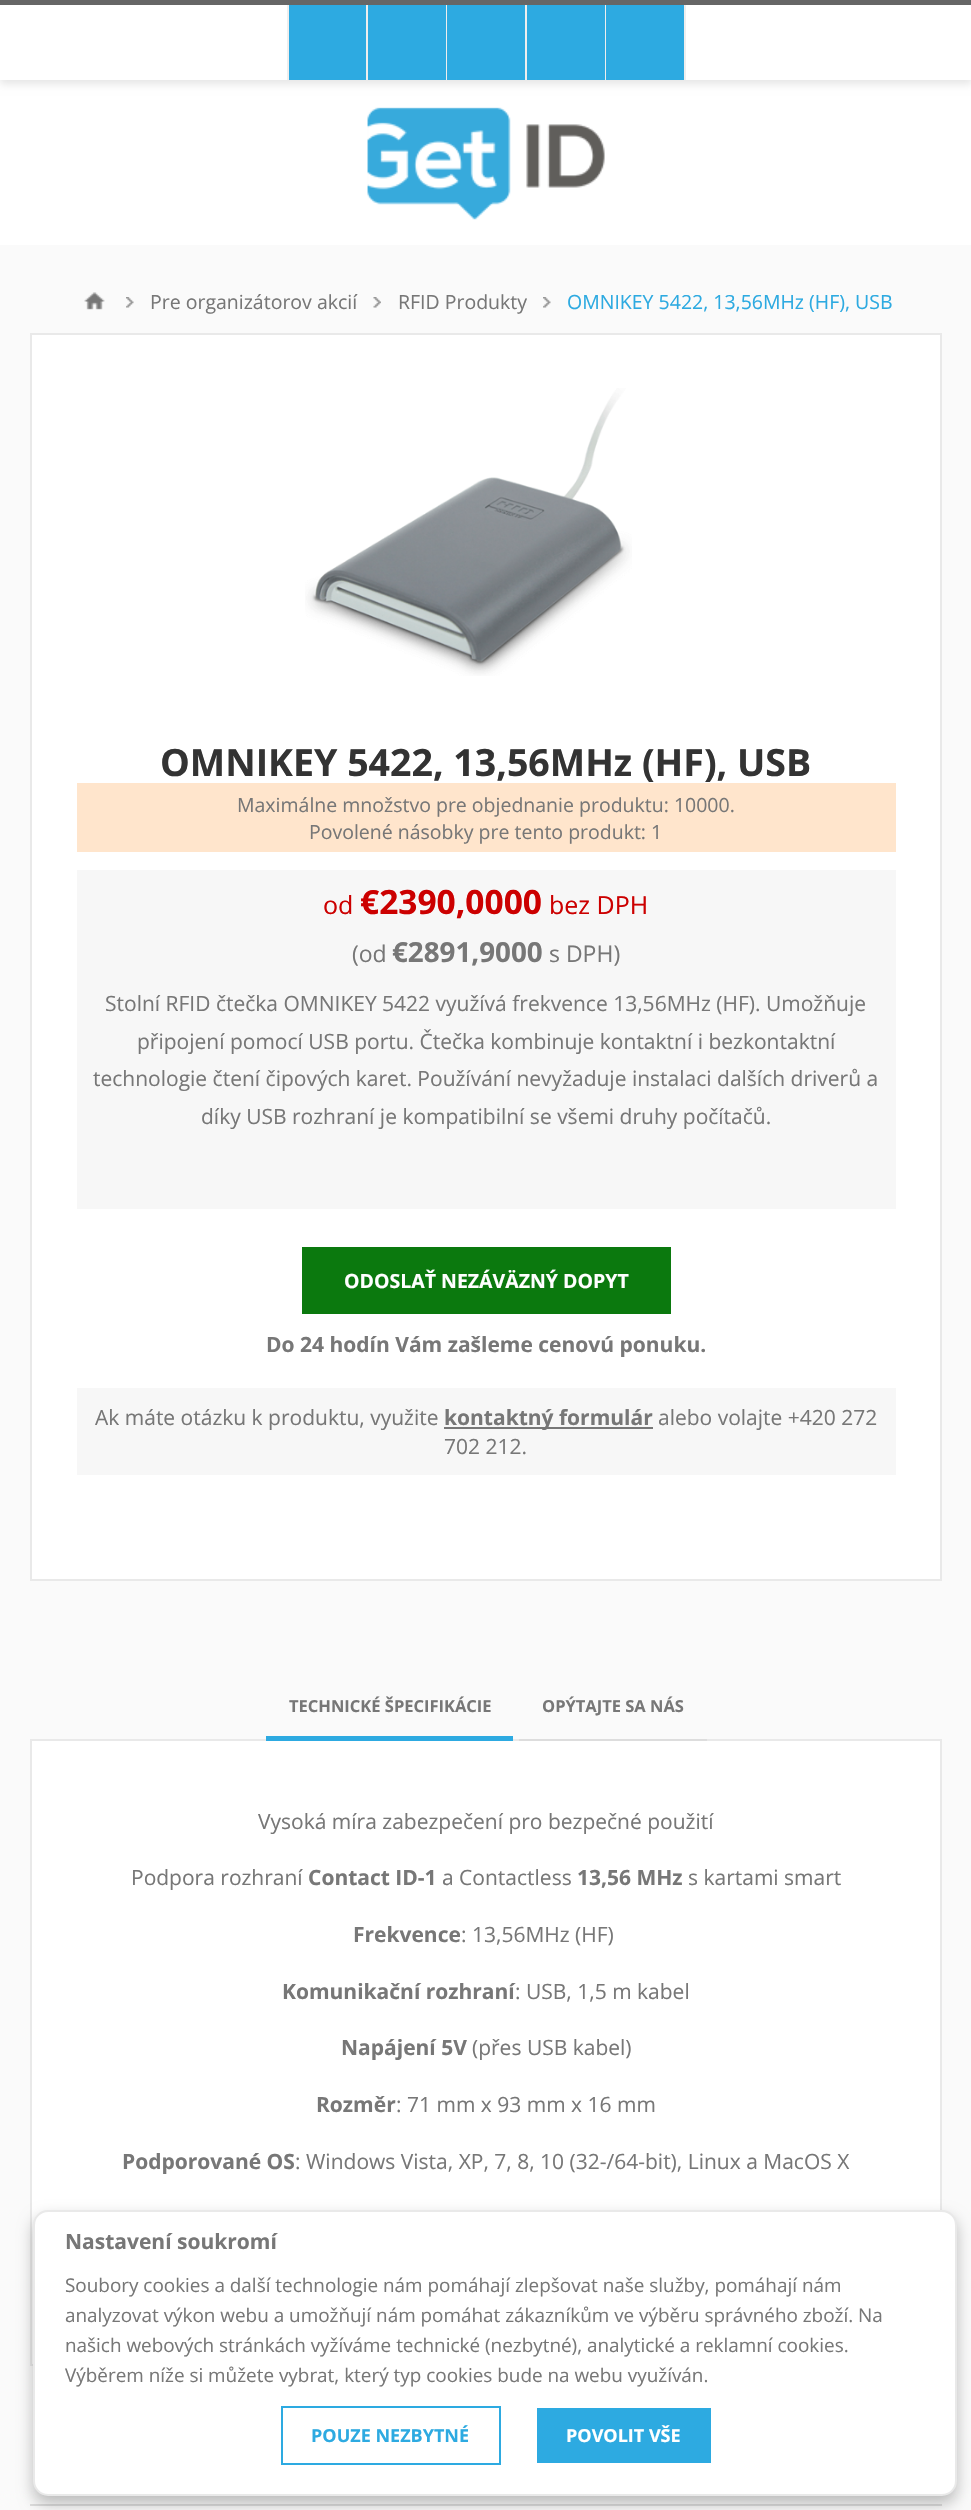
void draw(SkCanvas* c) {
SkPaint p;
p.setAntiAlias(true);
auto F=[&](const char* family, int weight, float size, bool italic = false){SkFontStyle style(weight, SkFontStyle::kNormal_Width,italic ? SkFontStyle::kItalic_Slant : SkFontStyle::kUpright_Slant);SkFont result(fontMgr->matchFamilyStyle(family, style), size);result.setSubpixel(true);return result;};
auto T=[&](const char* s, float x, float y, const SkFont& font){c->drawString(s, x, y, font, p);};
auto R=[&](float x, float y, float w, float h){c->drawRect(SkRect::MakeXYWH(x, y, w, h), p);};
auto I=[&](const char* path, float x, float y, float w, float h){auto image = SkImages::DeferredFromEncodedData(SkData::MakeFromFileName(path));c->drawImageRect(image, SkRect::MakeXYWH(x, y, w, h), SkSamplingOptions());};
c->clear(0xfffafafa);
p.setColor(0xffffffff);
R(0,80,971,165);
p.setColor(0x1a000000);
p.setMaskFilter(SkMaskFilter::MakeBlur(kNormal_SkBlurStyle, 4));
c->drawRect(SkRect::MakeXYWH(0,5,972,79),p);
p.setMaskFilter(nullptr);
p.setColor(0xffffffff);
R(0,5,971,75);
p.setColor(0xff666666);
R(0,0,971,5);
p.setColor(0xff2daae1);
R(289,5,77,75);
p.setColor(0xffeeeeee);
R(366,5,2,75);
R(287,5,2,75);
p.setColor(0xff2daae1);
R(368,5,78,75);
p.setColor(0xffeeeeee);
R(446,5,1,75);
p.setColor(0xff2daae1);
R(447,5,78,75);
p.setColor(0xffeeeeee);
R(525,5,2,75);
p.setColor(0xff2daae1);
R(527,5,78,75);
p.setColor(0xffeeeeee);
R(605,5,1,75);
p.setColor(0xff2daae1);
R(606,5,78,75);
p.setColor(0xffeeeeee);
R(684,5,2,75);
I("1.png",367,107,238,113);
I("2.png",84,292,21,18);
I("3.png",126,297,8,11);
auto f1 = F("Open Sans",400,19.5);
p.setColor(0xff777777);
T("Pre organizátorov akcií",150,309,f1);
I("4.png",373,297,8,11);
T("RFID Produkty",398,309,f1);
I("3.png",543,297,8,11);
p.setColor(0xff2daae1);
T("OMNIKEY 5422, 13,56MHz (HF), USB",567,309,f1);
p.setColor(0xffffffff);
c->drawRect(SkRect::MakeXYWH(31,334,910,1246),p);
p.setStroke(true);
p.setStrokeWidth(2);
p.setColor(0xffe9e9e9);
c->drawRect(SkRect::MakeXYWH(31,334,910,1246),p);
I("5.png",305,388,327,288);
auto f2 = F("Open Sans",700,37.5);
p.setStroke(false);
p.setColor(0xff333333);
T("OMNIKEY 5422, 13,56MHz (HF), USB",160,776,f2);
p.setColor(0xffffe5cc);
R(77,783,819,69);
p.setColor(0xff777777);
T("Maximálne množstvo pre objednanie produktu: 10000.",237,812,f1);
T("Povolené násobky pre tento produkt: 1",309,839,f1);
p.setColor(0xfff7f7f7);
R(77,870,819,339);
auto f3 = F("Open Sans",400,25);
p.setColor(0xffcc0000);
T("od",323,914,f3);
auto f4 = F("Open Sans",700,33.5);
T("€2390,0000",360,914,f4);
T("bez DPH",549,914,f3);
auto f5 = F("Open Sans",400,23);
p.setColor(0xff777777);
T("(od",352,962,f5);
auto f6 = F("Open Sans",700,27.75);
T("€2891,9000",392,962,f6);
T("s DPH)",549,962,f5);
auto f7 = F("Open Sans",400,21);
T("Stolní RFID čtečka OMNIKEY 5422 využívá frekvence 13,56MHz (HF). Umožňuje",105,1011,f7);
T("připojení pomocí USB portu. Čtečka kombinuje kontaktní i bezkontaktní",137,1049,f7);
T("technologie čtení čipových karet. Používání nevyžaduje instalaci dalších driverů a",93,1086,f7);
T("díky USB rozhraní je kompatibilní se všemi druhy počítačů.",201,1124,f7);
p.setColor(0xff0b790e);
R(302,1247,369,67);
auto f8 = F("Open Sans",700,19.5);
p.setColor(0xffffffff);
T("ODOSLAŤ NEZÁVÄZNÝ DOPYT",344,1288,f8);
auto f9 = F("Open Sans",700,21);
p.setColor(0xff777777);
T("Do 24 hodín Vám zašleme cenovú ponuku.",266,1352,f9);
p.setColor(0xfff7f7f7);
R(77,1388,819,87);
p.setColor(0xff777777);
T("Ak máte otázku k produktu, využite",95,1425,f7);
R(444,1427,209,2);
T("kontaktný formulár",444,1425,f9);
T("alebo volajte +420 272",658,1425,f7);
T("702 212.",444,1454,f7);
auto f10 = F("Open Sans",700,16.5);
T("TECHNICKÉ ŠPECIFIKÁCIE",289,1712,f10);
p.setColor(0xffffffff);
c->drawRect(SkRect::MakeXYWH(31,1740,910,625),p);
p.setStroke(true);
p.setColor(0xffe9e9e9);
c->drawRect(SkRect::MakeXYWH(31,1740,910,625),p);
p.setStroke(false);
p.setColor(0xff2daae1);
R(266,1736,247,5);
p.setColor(0xffdddddd);
R(519,1739,188,2);
p.setColor(0xff777777);
T("OPÝTAJTE SA NÁS",542,1712,f10);
T("Vysoká míra zabezpečení pro bezpečné použití",258,1829,f7);
T("Podpora rozhraní",131,1885,f7);
T("Contact ID-1",308,1885,f9);
T("a Contactless",442,1885,f7);
T("13,56 MHz",577,1885,f9);
T("s kartami smart",688,1885,f7);
T("Frekvence",353,1942,f9);
T(": 13,56MHz (HF)",461,1942,f7);
T("Komunikační rozhraní",282,1999,f9);
T(": USB, 1,5 m kabel",515,1999,f7);
T("Napájení 5V",341,2055,f9);
T("(přes USB kabel)",472,2055,f7);
T("Rozměr",316,2112,f9);
T(": 71 mm x 93 mm x 16 mm",396,2112,f7);
T("Podporované OS",122,2169,f9);
T(": Windows Vista, XP, 7, 8, 10 (32-/64-bit), Linux a MacOS X",295,2169,f7);
p.setColor(0xffdddddd);
R(30,2504,912,2);
p.setColor(0x40000000);
p.setMaskFilter(SkMaskFilter::MakeBlur(kNormal_SkBlurStyle, 7.5));
c->drawRoundRect(SkRect::MakeXYWH(33,2217,924,287),15,15,p);
p.setMaskFilter(nullptr);
p.setColor(0xffffffff);
c->drawRoundRect(SkRect::MakeXYWH(34,2211,922,284),14,14,p);
p.setStroke(true);
p.setColor(0xffe9e9e9);
c->drawRoundRect(SkRect::MakeXYWH(34,2211,922,284),14,14,p);
p.setStroke(false);
p.setColor(0xff777777);
T("Nastavení soukromí",65,2249,f9);
auto f11 = F("Open Sans",400,18.9);
T("Soubory cookies a další technologie nám pomáhají zlepšovat naše služby, pomáhají nám",65,2292,f11);
T("analyzovat výkon webu a umožňují nám pomáhat zákazníkům ve výběru správného zboží. Na",65,2322,f11);
T("našich webových stránkách vyžíváme technické (nezbytné), analytické a reklamní cookies.",65,2352,f11);
T("Výběrem níže si můžete vybrat, který typ cookies bude na webu využíván.",65,2382,f11);
p.setStroke(true);
p.setColor(0xff2daae1);
c->drawRect(SkRect::MakeXYWH(282,2407,218,57),p);
auto f12 = F("Open Sans",700,18);
p.setStroke(false);
T("POUZE NEZBYTNÉ",311,2442,f12);
R(537,2408,174,55);
p.setColor(0xffffffff);
T("POVOLIT VŠE",566,2442,f12);
}
